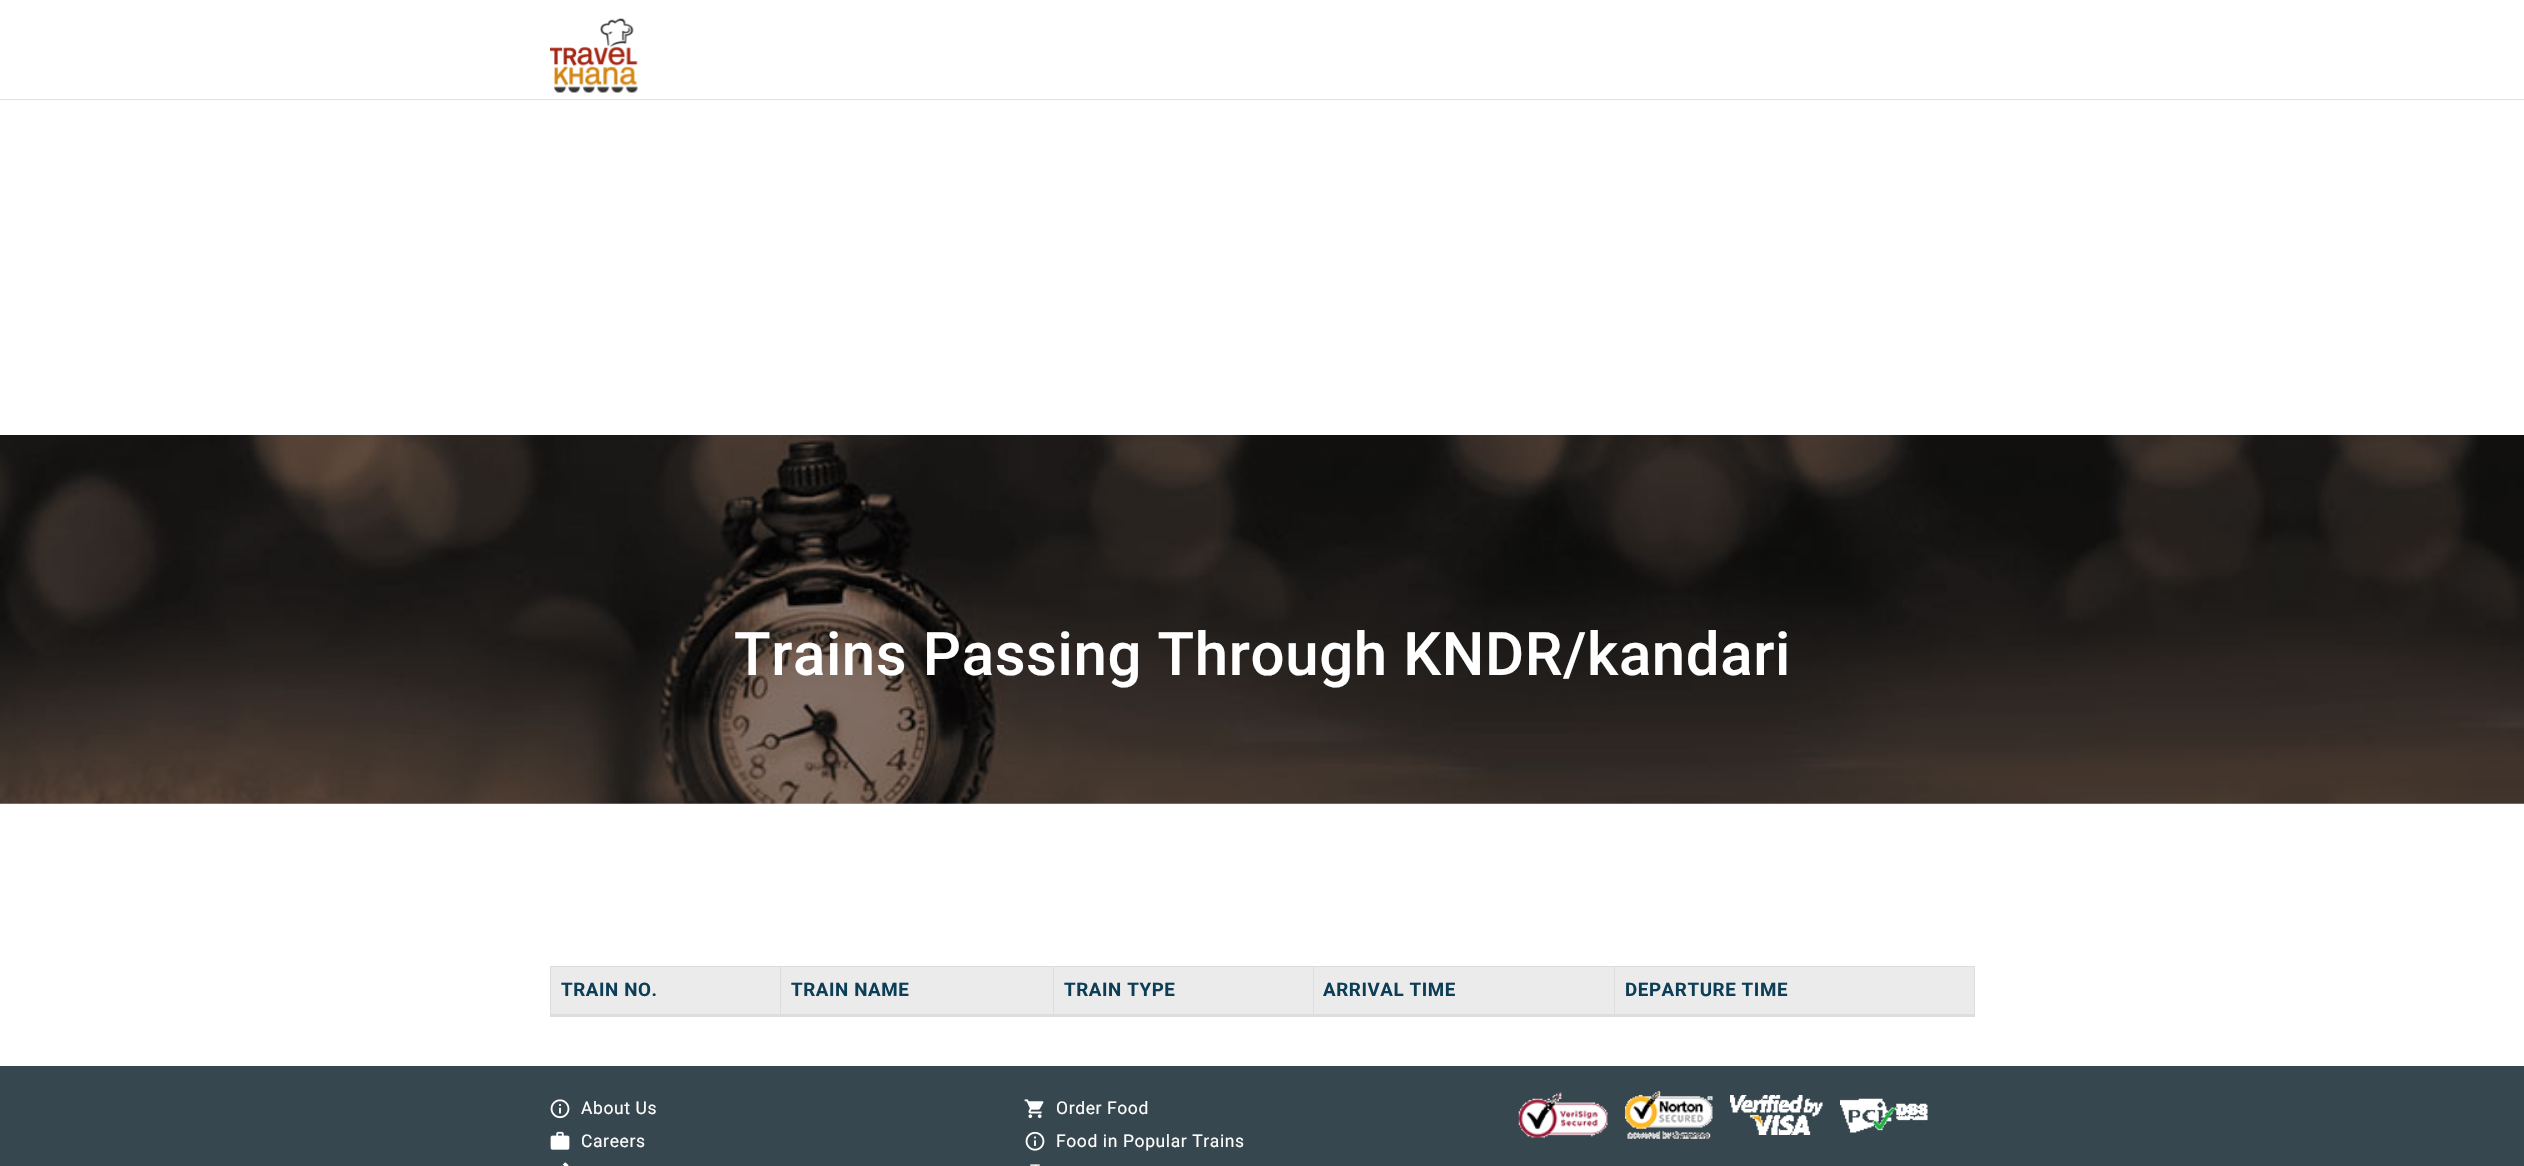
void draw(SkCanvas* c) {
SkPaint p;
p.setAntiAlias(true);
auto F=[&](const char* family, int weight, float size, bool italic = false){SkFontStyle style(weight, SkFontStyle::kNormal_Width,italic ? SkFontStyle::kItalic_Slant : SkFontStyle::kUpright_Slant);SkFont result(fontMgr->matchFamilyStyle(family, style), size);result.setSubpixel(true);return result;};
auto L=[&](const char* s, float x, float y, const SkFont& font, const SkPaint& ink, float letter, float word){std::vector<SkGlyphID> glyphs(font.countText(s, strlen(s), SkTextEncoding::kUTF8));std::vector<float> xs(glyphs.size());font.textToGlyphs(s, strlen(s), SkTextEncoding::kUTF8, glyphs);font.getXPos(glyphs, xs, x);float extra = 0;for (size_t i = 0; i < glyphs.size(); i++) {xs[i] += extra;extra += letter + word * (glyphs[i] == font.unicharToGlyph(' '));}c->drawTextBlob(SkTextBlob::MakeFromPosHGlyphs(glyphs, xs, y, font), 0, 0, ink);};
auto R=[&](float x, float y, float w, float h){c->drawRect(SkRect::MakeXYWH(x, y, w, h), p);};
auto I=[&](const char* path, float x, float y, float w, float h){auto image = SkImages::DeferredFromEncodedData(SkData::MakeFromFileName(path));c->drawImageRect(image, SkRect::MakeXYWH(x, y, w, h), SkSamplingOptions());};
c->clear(0xffffffff);
p.setColor(0xffe1e1e1);
R(0,99,2524,1);
I("1.png",550,18,88,75);
I("2.png",0,435,2524,369);
auto f1 = F("Roboto",500,60);
p.setColor(0xffffffff);
L("Trains Passing Through KNDR/kandari",734,675,f1,p,.6,0);
p.setColor(0xffdddddd);
R(550,966,1425,1);
R(1974,966,1,50);
R(550,966,1,50);
p.setColor(0xffebebeb);
R(551,967,1423,47);
auto f2 = F("Roboto",700,18.75);
p.setColor(0xff0d3e57);
L("TRAIN NO.",561,996,f2,p,.6,0);
p.setColor(0xffdddddd);
R(780,966,1,50);
p.setColor(0xff0d3e57);
L("TRAIN NAME",791,996,f2,p,.6,0);
p.setColor(0xffdddddd);
R(1053,966,1,50);
p.setColor(0xff0d3e57);
L("TRAIN TYPE",1064,996,f2,p,.6,0);
p.setColor(0xffdddddd);
R(1313,966,1,50);
p.setColor(0xff0d3e57);
L("ARRIVAL TIME",1323,996,f2,p,.6,0);
p.setColor(0xffdddddd);
R(1614,966,1,50);
R(550,1014,1425,3);
p.setColor(0xff0d3e57);
L("DEPARTURE TIME",1625,996,f2,p,.6,0);
p.setColor(0xff37474f);
R(0,1066,2524,100);
I("3.png",550,1099,20,20);
auto f3 = F("Roboto",400,17.5);
p.setColor(0xffffffff);
L("About Us",581,1114,f3,p,.6,0);
I("4.png",550,1131,20,19);
L("Careers",581,1147,f3,p,.6,0);
I("5.png",561,1162,8,4);
I("6.png",1024,1099,20,20);
L("Order Food",1056,1114,f3,p,.6,0);
I("7.png",1025,1131,20,20);
L("Food in Popular Trains",1056,1147,f3,p,.6,0);
I("8.png",1030,1164,10,2);
I("9.png",1518,1092,90,46);
I("10.png",1625,1091,88,48);
I("11.png",1730,1095,93,40);
I("12.png",1840,1098,88,35);
}
